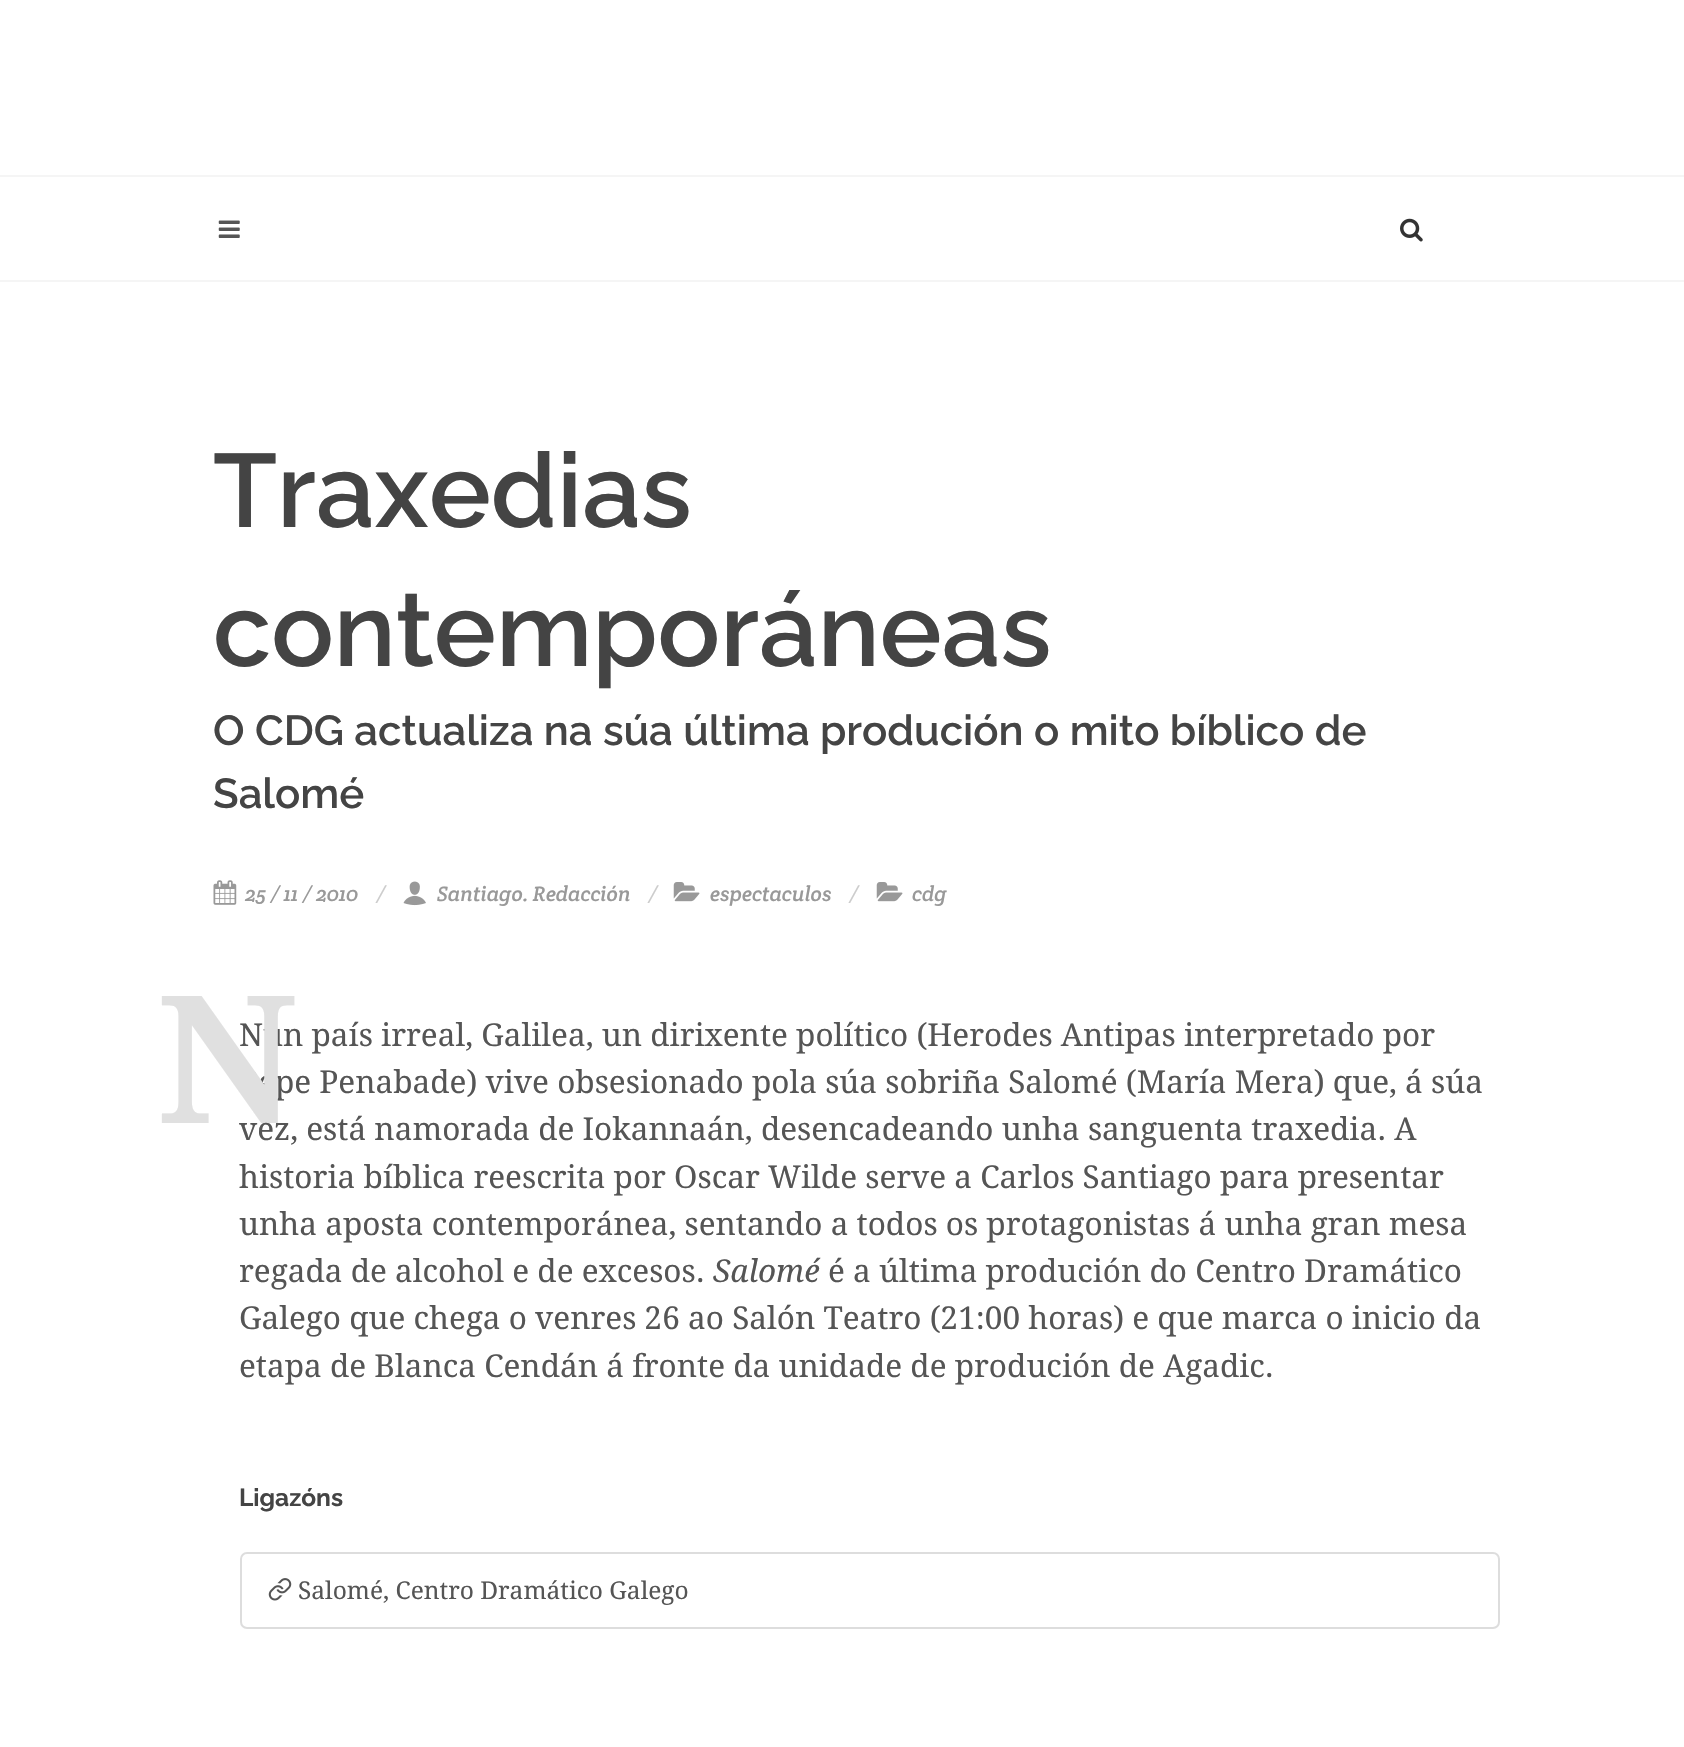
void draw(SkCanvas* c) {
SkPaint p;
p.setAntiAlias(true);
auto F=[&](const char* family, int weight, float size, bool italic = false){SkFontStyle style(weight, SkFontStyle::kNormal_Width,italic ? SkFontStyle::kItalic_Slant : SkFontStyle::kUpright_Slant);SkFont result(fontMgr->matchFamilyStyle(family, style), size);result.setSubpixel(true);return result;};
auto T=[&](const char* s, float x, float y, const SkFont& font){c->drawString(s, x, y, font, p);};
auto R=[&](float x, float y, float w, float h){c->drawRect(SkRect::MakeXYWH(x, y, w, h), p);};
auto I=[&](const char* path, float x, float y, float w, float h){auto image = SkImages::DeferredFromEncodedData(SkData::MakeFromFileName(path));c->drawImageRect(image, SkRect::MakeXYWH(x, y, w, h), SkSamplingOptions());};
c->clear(0xffffffff);
p.setColor(0xfff5f5f5);
R(0,280,1684,2);
R(0,175,1684,2);
I("1.png",218,220,22,18);
I("2.png",1400,218,23,24);
auto f1 = F("Raleway",600,104);
p.setColor(0xff444444);
T("Traxedias",213,527,f1);
T("contemporáneas",213,666,f1);
auto f2 = F("Raleway",600,42);
T("O CDG actualiza na súa última produción o mito bíblico de",213,745,f2);
T("Salomé",213,808,f2);
I("3.png",213,880,24,25);
auto f3 = F("Crete Round",400,21,true);
p.setColor(0xff999999);
T("25 / 11 / 2010",245,901,f3);
p.setColor(0xffcccccc);
T("/",376,901,f3);
I("4.png",403,881,23,25);
p.setColor(0xff999999);
T("Santiago. Redacción",437,901,f3);
p.setColor(0xffcccccc);
T("/",648,901,f3);
I("5.png",673,882,27,20);
p.setColor(0xff999999);
T("espectaculos",710,901,f3);
p.setColor(0xffcccccc);
T("/",849,901,f3);
I("5.png",876,882,27,20);
p.setColor(0xff999999);
T("cdg",912,901,f3);
auto f4 = F("Droid Serif",400,31.5);
p.setColor(0xff555555);
T("Nun país irreal, Galilea, un dirixente político (Herodes Antipas interpretado por",239,1046,f4);
T("Pepe Penabade) vive obsesionado pola súa sobriña Salomé (María Mera) que, á súa",239,1093,f4);
auto f5 = F("Droid Serif",700,178);
p.setColor(0xffe0e0e0);
T("N",157,1123,f5);
p.setColor(0xff555555);
T("vez, está namorada de Iokannaán, desencadeando unha sanguenta traxedia. A",239,1140,f4);
T("historia bíblica reescrita por Oscar Wilde serve a Carlos Santiago para presentar",239,1188,f4);
T("unha aposta contemporánea, sentando a todos os protagonistas á unha gran mesa",239,1235,f4);
T("regada de alcohol e de excesos.",239,1282,f4);
auto f6 = F("Droid Serif",400,31.5,true);
T("Salomé",713,1282,f6);
T("é a última produción do Centro Dramático",828,1282,f4);
T("Galego que chega o venres 26 ao Salón Teatro (21:00 horas) e que marca o inicio da",239,1329,f4);
T("etapa de Blanca Cendán á fronte da unidade de produción de Agadic.",239,1377,f4);
auto f7 = F("Raleway",700,24.5);
p.setColor(0xff444444);
T("Ligazóns",239,1506,f7);
p.setStroke(true);
p.setStrokeWidth(2);
p.setColor(0xffdddddd);
c->drawRoundRect(SkRect::MakeXYWH(241,1553,1258,75),6,6,p);
I("6.png",268,1578,24,23);
auto f8 = F("Droid Serif",400,24.5);
p.setStroke(false);
p.setColor(0xff555555);
T("Salomé, Centro Dramático Galego",298,1599,f8);
}
